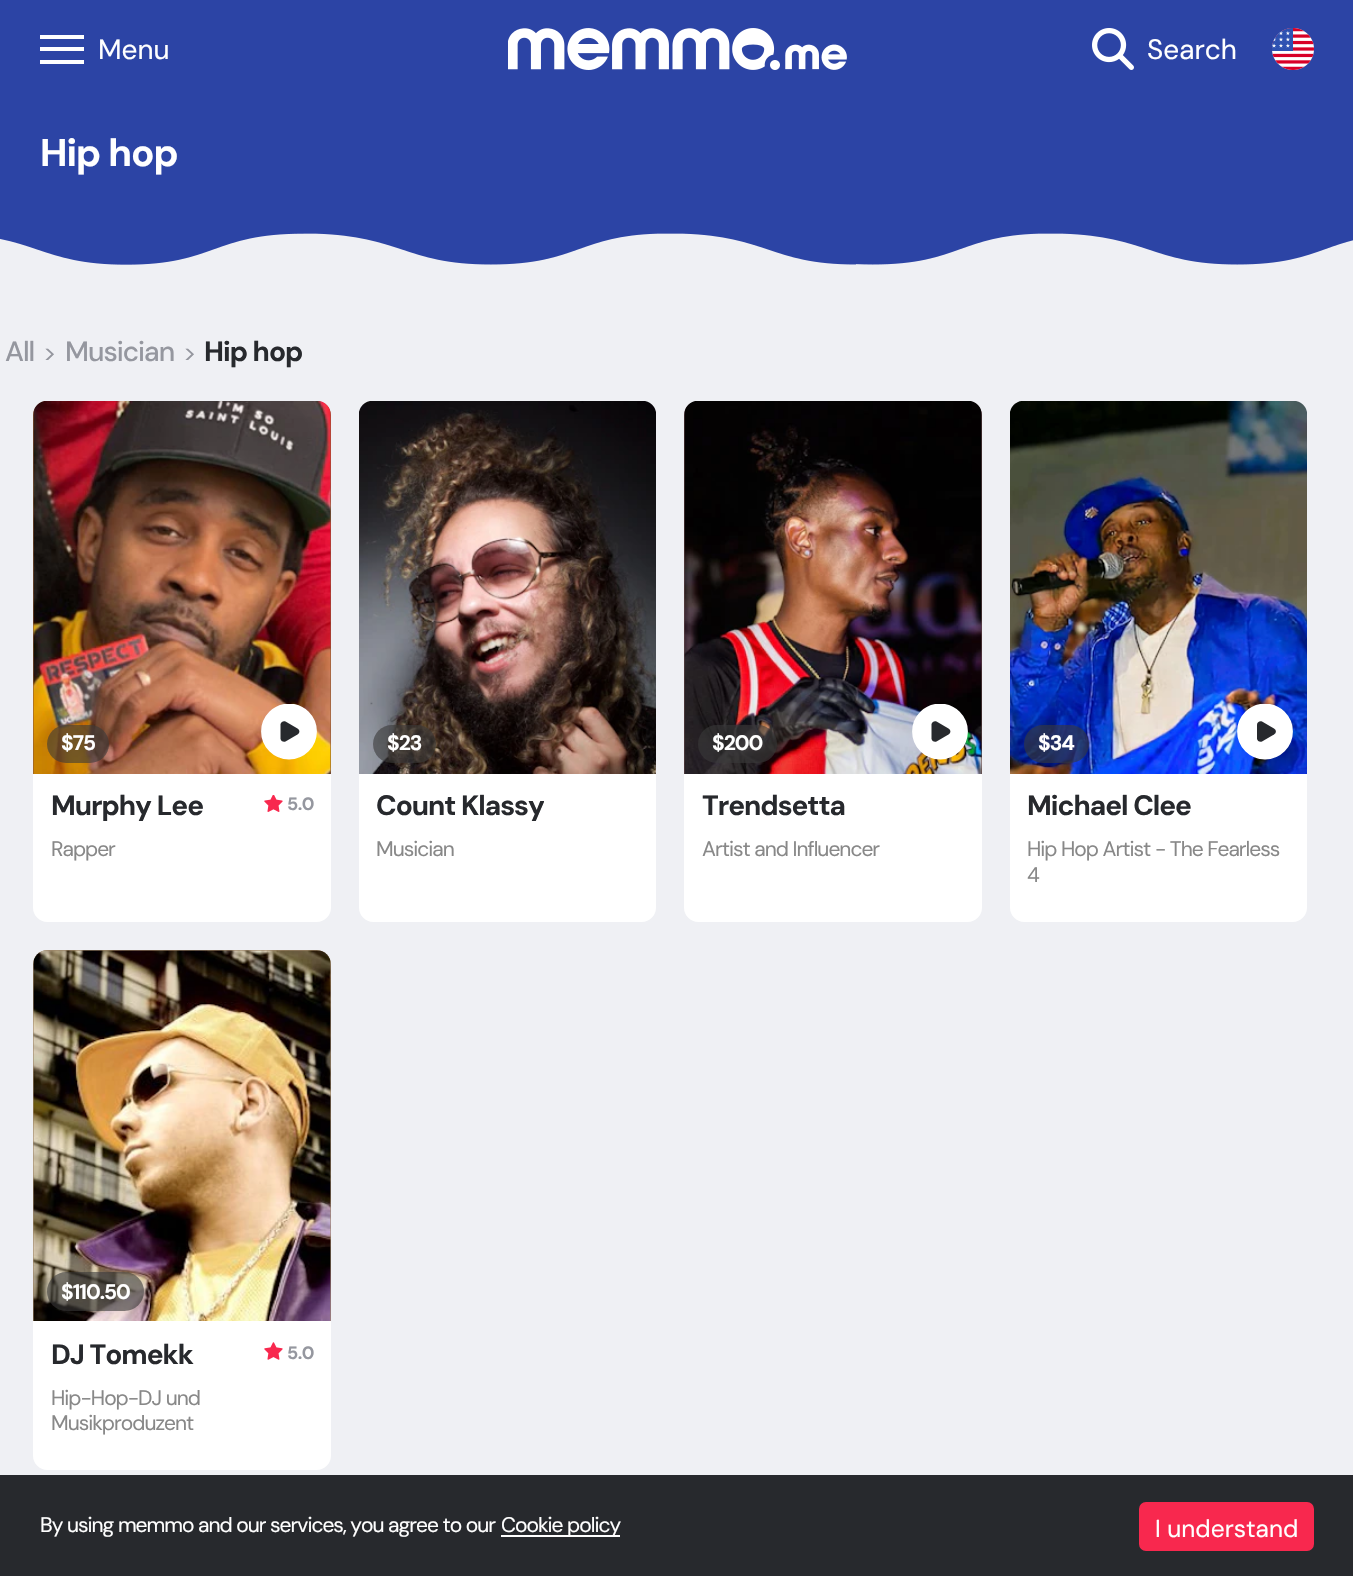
void draw(SkCanvas* c) {
SkPaint p;
p.setAntiAlias(true);
auto F=[&](const char* family, int weight, float size, bool italic = false){SkFontStyle style(weight, SkFontStyle::kNormal_Width,italic ? SkFontStyle::kItalic_Slant : SkFontStyle::kUpright_Slant);SkFont result(fontMgr->matchFamilyStyle(family, style), size);result.setSubpixel(true);return result;};
auto T=[&](const char* s, float x, float y, const SkFont& font){c->drawString(s, x, y, font, p);};
auto L=[&](const char* s, float x, float y, const SkFont& font, const SkPaint& ink, float letter, float word){std::vector<SkGlyphID> glyphs(font.countText(s, strlen(s), SkTextEncoding::kUTF8));std::vector<float> xs(glyphs.size());font.textToGlyphs(s, strlen(s), SkTextEncoding::kUTF8, glyphs);font.getXPos(glyphs, xs, x);float extra = 0;for (size_t i = 0; i < glyphs.size(); i++) {xs[i] += extra;extra += letter + word * (glyphs[i] == font.unicharToGlyph(' '));}c->drawTextBlob(SkTextBlob::MakeFromPosHGlyphs(glyphs, xs, y, font), 0, 0, ink);};
auto R=[&](float x, float y, float w, float h){c->drawRect(SkRect::MakeXYWH(x, y, w, h), p);};
auto Q=[&](float x, float y, float w, float h, float radius){c->drawRoundRect(SkRect::MakeXYWH(x, y, w, h), radius, radius, p);};
auto I=[&](const char* path, float x, float y, float w, float h){auto image = SkImages::DeferredFromEncodedData(SkData::MakeFromFileName(path));c->drawImageRect(image, SkRect::MakeXYWH(x, y, w, h), SkSamplingOptions());};
auto P=[&](const char* data, bool evenOdd = false){SkPath result = *SkParsePath::FromSVGString(data);if (evenOdd) result.setFillType(SkPathFillType::kEvenOdd);return result;};
c->clear(0xffeff0f4);
p.setColor(0xff2c44a5);
R(0,0,1353,265);
p.setColor(0xffffffff);
R(40,35,44,4);
R(40,47,44,4);
R(40,60,44,4);
auto f1 = F("DM Sans",400,28);
T("Menu",98,59,f1);
I("1.png",508,28,339,42);
I("2.png",1092,28,42,42);
T("Search",1147,59,f1);
I("3.png",1272,28,42,42);
auto f2 = F("DM Sans",700,38.5);
L("Hip hop",40,166,f2,p,-1,0);
I("4.png",0,233,1353,44);
auto f3 = F("DM Sans",500,28);
p.setColor(0xff95979f);
L("All",5,361,f3,p,-1,0);
auto f4 = F("DM Sans",400,24.5);
L(">",43,361,f4,p,-1,0);
L("Musician",65,361,f3,p,-1,0);
L(">",183,361,f4,p,-1,0);
auto f5 = F("DM Sans",700,28);
p.setColor(0xff27292d);
L("Hip hop",204,361,f5,p,-1,0);
p.setColor(0xff8c5631);
c->drawPath(P("M47 401h270c7.5 0 14 6.5 14 14v376h-298v-376c0-7.5 6.5-14 14-14z"),p);
I("5.png",33,401,298,373);
p.setColor(0x99393939);
Q(47,725,62,38,19);
auto f6 = F("DM Sans",700,21);
p.setColor(0xffffffff);
L("$75",61,750,f6,p,-1,0);
c->drawCircle(289,731.5,27,p);
c->save();
c->clipRect(SkRect::MakeXYWH(261,704,56,56));
p.setStroke(true);
p.setStrokeWidth(1.8);
c->drawCircle(289,731.5,27,p);
c->restore();
p.setStroke(false);
p.setColor(0xff27292d);
c->drawPath(P("M297.5 728.5c2.5 1.5 2.5 4.5 0 6l-12 7c-2 1-5-.5-5-3v-14c0-2.5 3-4 5-3z"),p);
p.setColor(0xffffffff);
c->drawPath(P("M33 774h298v134c0 7.5-6.5 14-14 14h-270c-7.5 0-14-6.5-14-14z"),p);
c->save();
c->clipRect(SkRect::MakeXYWH(51,791,152,30));
p.setColor(0xff27292d);
L("Murphy Lee",51,815,f5,p,-1,0);
c->restore();
I("6.png",264,795,19,17);
auto f7 = F("DM Sans",700,18);
p.setColor(0xff95979f);
L("5.0",287,810,f7,p,-.5,0);
auto f8 = F("DM Sans",400,21);
p.setColor(0xff888888);
L("Rapper",51,856,f8,p,-1,0);
I("7.png",359,401,297,373);
p.setColor(0x99393939);
Q(373,725,63,38,19);
p.setColor(0xffffffff);
L("$23",387,750,f6,p,-1,0);
c->drawPath(P("M359 774h297v134c0 7.5-6.5 14-14 14h-269c-7.5 0-14-6.5-14-14z"),p);
c->save();
c->clipRect(SkRect::MakeXYWH(376,791,168,30));
p.setColor(0xff27292d);
L("Count Klassy",376,815,f5,p,-1,0);
c->restore();
p.setColor(0xff888888);
L("Musician",376,856,f8,p,-1,0);
p.setColor(0xff604447);
c->drawPath(P("M698 401h270c7.5 0 14 6.5 14 14v376h-298v-376c0-7.5 6.5-14 14-14z"),p);
I("8.png",684,401,298,373);
p.setColor(0x99393939);
Q(698,725,79,38,19);
p.setColor(0xffffffff);
L("$200",712,750,f6,p,-1,0);
c->drawCircle(940,731.5,27,p);
c->save();
c->clipRect(SkRect::MakeXYWH(912,704,56,56));
p.setStroke(true);
c->drawCircle(940,731.5,27,p);
c->restore();
p.setStroke(false);
p.setColor(0xff27292d);
c->drawPath(P("M948.5 728.5c2.5 1.5 2.5 4.5 0 6l-12 7c-2 1-5-.5-5-3v-14c0-2.5 3-4 5-3z"),p);
p.setColor(0xffffffff);
c->drawPath(P("M684 774h298v134c0 7.5-6.5 14-14 14h-270c-7.5 0-14-6.5-14-14z"),p);
p.setColor(0xff27292d);
L("Trendsetta",702,815,f5,p,-1,0);
p.setColor(0xff888888);
L("Artist and Influencer",702,856,f8,p,-1,0);
I("9.png",1010,401,297,373);
p.setColor(0x99393939);
Q(1024,725,65,38,19);
p.setColor(0xffffffff);
L("$34",1038,750,f6,p,-1,0);
c->drawCircle(1265,731.5,27,p);
c->save();
c->clipRect(SkRect::MakeXYWH(1237,704,56,56));
p.setStroke(true);
c->drawCircle(1265,731.5,27,p);
c->restore();
p.setStroke(false);
p.setColor(0xff27292d);
c->drawPath(P("M1274 728.5c2.5 1.5 2.5 4.5 0 6l-12 7c-2 1-5-.5-5-3v-14c0-2.5 3-4 5-3z"),p);
p.setColor(0xffffffff);
c->drawPath(P("M1010 774h297v134c0 7.5-6.5 14-14 14h-269c-7.5 0-14-6.5-14-14z"),p);
p.setColor(0xff27292d);
L("Michael Clee",1027,815,f5,p,-1,0);
p.setColor(0xff888888);
L("Hip Hop Artist - The Fearless",1027,856,f8,p,-1,0);
L("4",1027,882,f8,p,-1,0);
p.setColor(0xff9d8669);
c->drawPath(P("M47 950h270c7.5 0 14 6.5 14 14v377h-298v-377c0-7.5 6.5-14 14-14z"),p);
I("10.png",33,950,298,371);
p.setColor(0x99393939);
Q(47,1272,97,39,19.5);
p.setColor(0xffffffff);
L("$110.50",61,1299,f6,p,-1,0);
c->drawPath(P("M33 1321h298v135c0 7.5-6.5 14-14 14h-270c-7.5 0-14-6.5-14-14z"),p);
p.setColor(0xff27292d);
L("DJ Tomekk",51,1364,f5,p,-1,0);
I("11.png",264,1342,19,18);
p.setColor(0xff95979f);
L("5.0",287,1359,f7,p,-.5,0);
p.setColor(0xff888888);
L("Hip-Hop-DJ und",51,1405,f8,p,-1,0);
L("Musikproduzent",51,1430,f8,p,-1,0);
p.setColor(0xff27292d);
R(0,1475,1353,101);
p.setColor(0xffffffff);
L("By using memmo and our services, you agree to our",40,1532,f8,p,-1,0);
R(501,1535,119,2);
L("Cookie policy",501,1532,f8,p,-1,0);
p.setColor(0xfff8284e);
c->drawRoundRect(SkRect::MakeXYWH(1141,1504,171,45),5,5,p);
p.setStroke(true);
p.setStrokeWidth(4);
c->drawRoundRect(SkRect::MakeXYWH(1141,1504,171,45),5,5,p);
p.setStroke(false);
p.setColor(0xffffffff);
T("I understand",1155,1537,f4);
}
